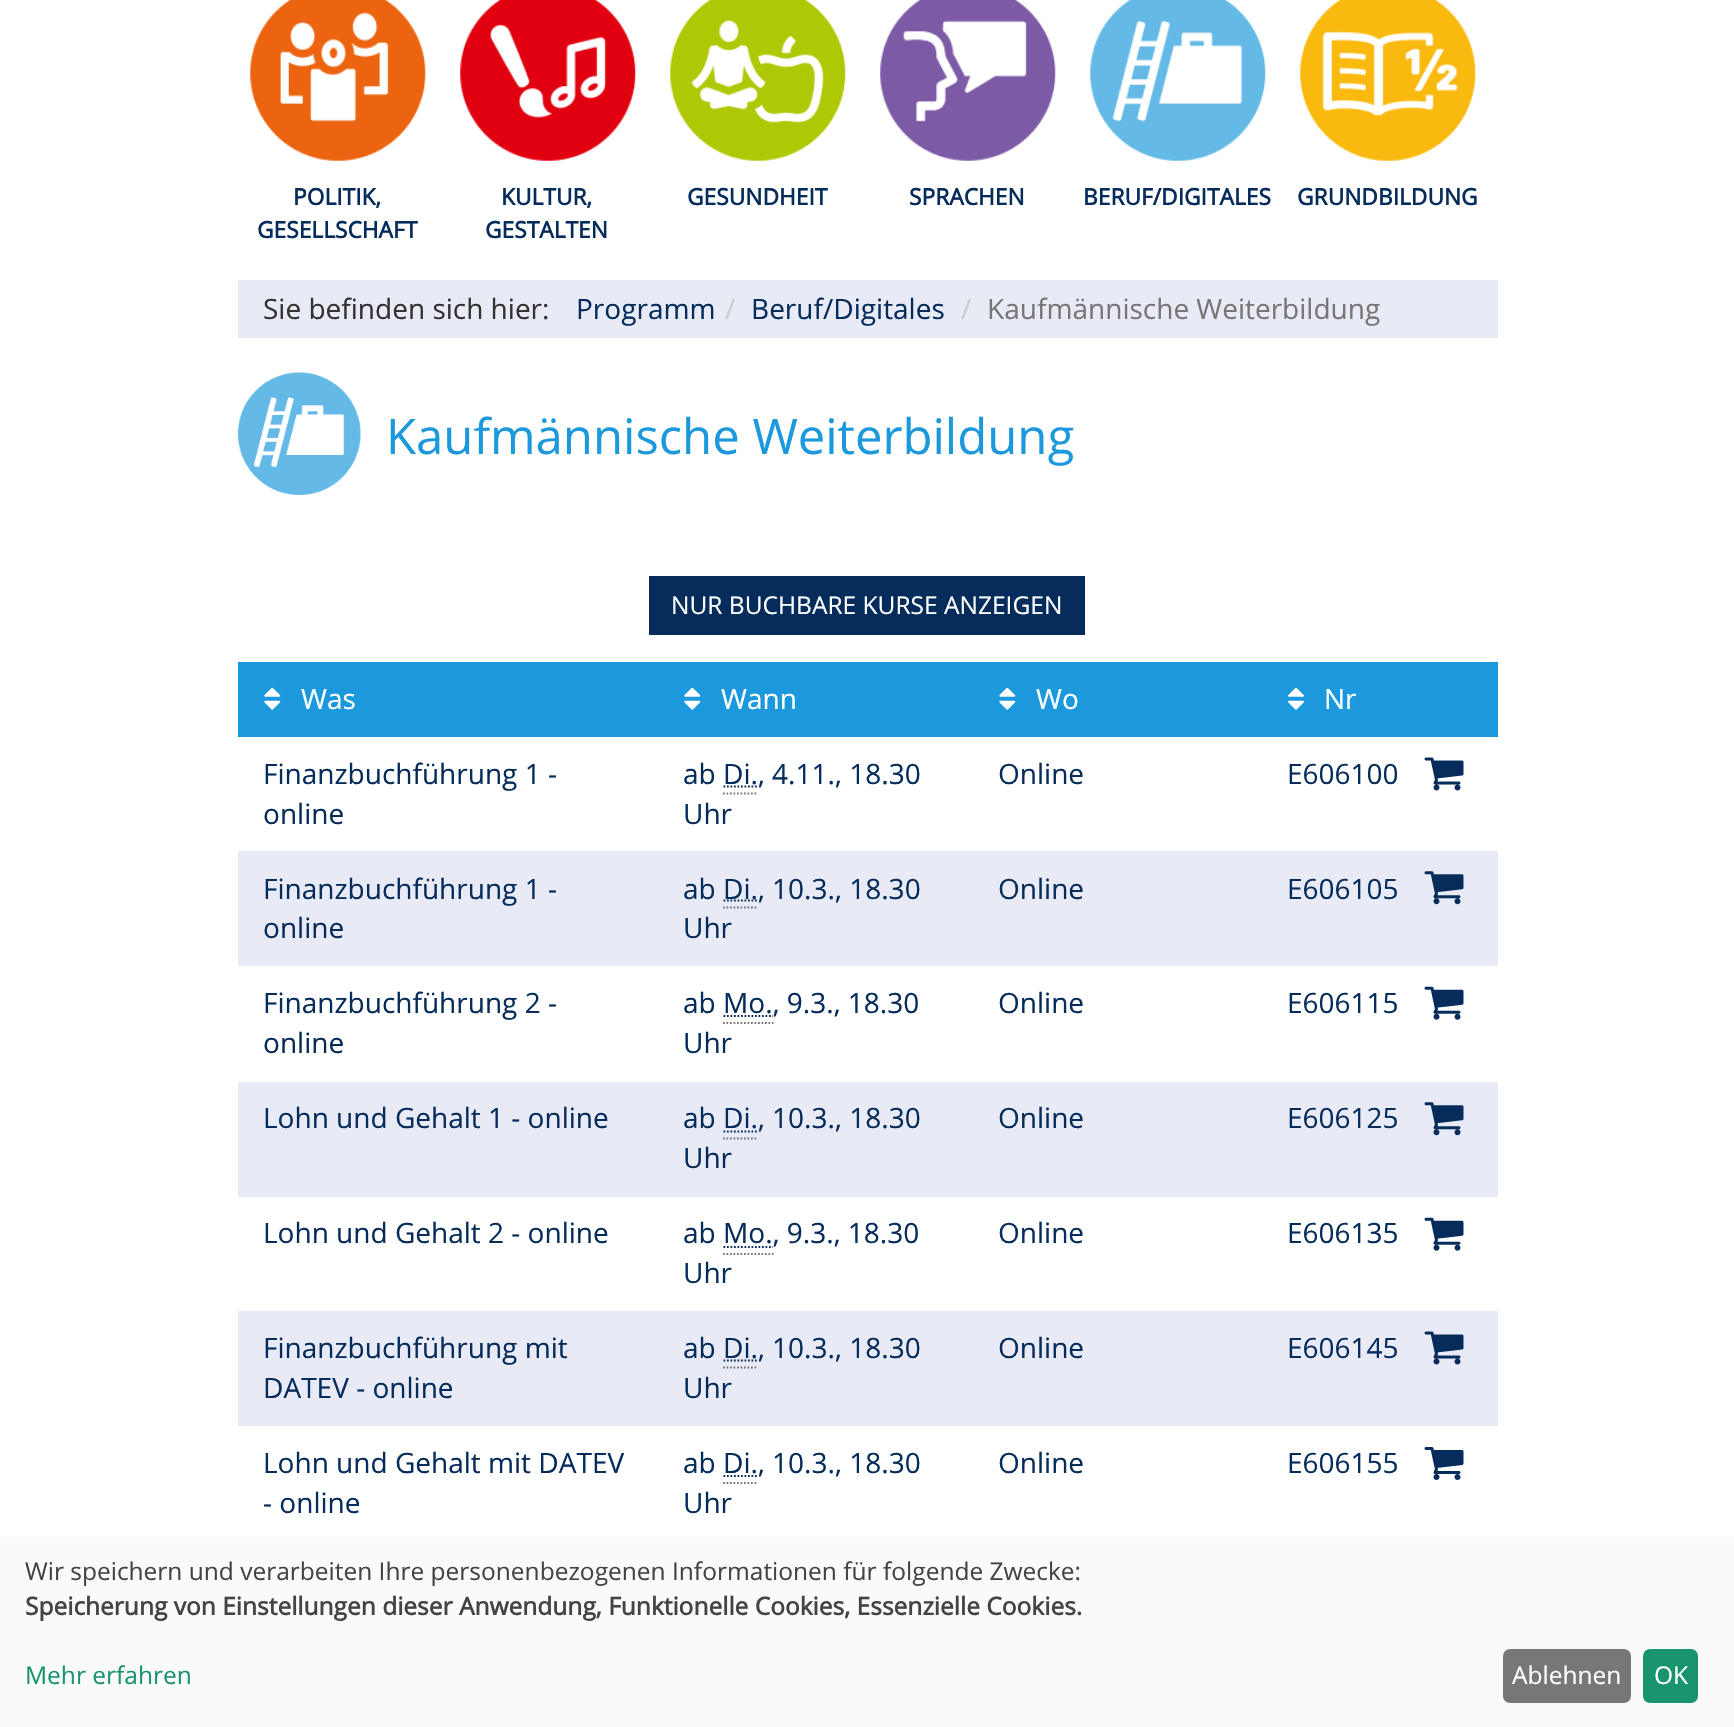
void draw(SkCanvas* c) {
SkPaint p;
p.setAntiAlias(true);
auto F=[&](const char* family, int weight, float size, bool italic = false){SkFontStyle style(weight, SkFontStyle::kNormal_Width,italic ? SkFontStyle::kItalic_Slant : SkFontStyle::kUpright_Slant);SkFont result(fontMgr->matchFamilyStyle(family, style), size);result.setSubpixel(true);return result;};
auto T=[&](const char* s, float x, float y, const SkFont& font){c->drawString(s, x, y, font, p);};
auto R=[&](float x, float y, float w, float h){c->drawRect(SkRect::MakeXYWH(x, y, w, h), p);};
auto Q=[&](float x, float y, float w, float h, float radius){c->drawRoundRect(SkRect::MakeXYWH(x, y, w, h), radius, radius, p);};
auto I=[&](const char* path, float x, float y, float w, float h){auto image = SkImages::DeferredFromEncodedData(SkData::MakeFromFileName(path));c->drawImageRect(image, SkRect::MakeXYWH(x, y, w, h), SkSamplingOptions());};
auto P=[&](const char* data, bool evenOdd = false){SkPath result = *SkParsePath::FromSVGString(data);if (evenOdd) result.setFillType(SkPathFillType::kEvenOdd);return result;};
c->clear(0xffffffff);
I("1.png",250,0,176,161);
auto f1 = F("Open Sans",700,22.75);
p.setColor(0xff052c5a);
T("POLITIK,",293,205,f1);
T("GESELLSCHAFT",257,238,f1);
I("2.png",460,0,176,161);
T("KULTUR,",501,205,f1);
T("GESTALTEN",485,238,f1);
I("3.png",670,0,176,161);
T("GESUNDHEIT",687,205,f1);
I("4.png",880,0,176,161);
T("SPRACHEN",909,205,f1);
I("5.png",1090,0,176,161);
T("BERUF/DIGITALES",1083,205,f1);
I("6.png",1300,0,176,161);
T("GRUNDBILDUNG",1297,205,f1);
p.setColor(0xffe8eaf6);
R(238,280,1260,58);
auto f2 = F("Open Sans",400,28);
p.setColor(0xff333333);
T("Sie befinden sich hier:",263,319,f2);
p.setColor(0xff052c5a);
T("Programm",576,319,f2);
p.setColor(0xffcccccc);
T("/",725,319,f2);
p.setColor(0xff052c5a);
T("Beruf/Digitales",751,319,f2);
p.setColor(0xffcccccc);
T("/",961,319,f2);
p.setColor(0xff777777);
T("Kaufmännische Weiterbildung",987,319,f2);
I("7.png",238,372,123,123);
auto f3 = F("Open Sans",400,49);
p.setColor(0xff1b99dc);
T("Kaufmännische Weiterbildung",386,454,f3);
p.setColor(0xff052c5a);
R(649,576,436,59);
auto f4 = F("Open Sans",400,24.5);
p.setColor(0xffffffff);
T("NUR BUCHBARE KURSE ANZEIGEN",671,614,f4);
p.setColor(0xff1b99dc);
R(238,662,1260,75);
I("8.png",264,687,17,23);
p.setColor(0xffffffff);
T("Was",301,709,f2);
I("8.png",684,687,17,23);
T("Wann",721,709,f2);
I("8.png",999,687,17,23);
T("Wo",1036,709,f2);
I("9.png",1288,687,16,23);
T("Nr",1324,709,f2);
p.setColor(0xff052c5a);
T("Finanzbuchführung 1 -",263,784,f2);
T("online",263,824,f2);
T("ab Di., 4.11., 18.30",683,784,f2);
p.setStroke(true);
p.setStrokeWidth(1.8);
p.setPathEffect(SkDashPathEffect::Make({{1.75f,1.75f}}, 0));
c->drawPath(P("M723.5 786.5h35"),p);
p.setPathEffect(nullptr);
p.setColor(0xff777777);
p.setPathEffect(SkDashPathEffect::Make({{1.75f,1.75f}}, 0));
c->drawPath(P("M723 793.5h35"),p);
p.setPathEffect(nullptr);
p.setStroke(false);
p.setColor(0xff052c5a);
T("Uhr",683,824,f2);
T("Online",998,784,f2);
T("E606100",1287,784,f2);
I("10.png",1424,757,40,34);
p.setColor(0xffe8eaf6);
R(238,851,1260,115);
p.setColor(0xff052c5a);
T("Finanzbuchführung 1 -",263,899,f2);
T("online",263,938,f2);
T("ab",683,899,f2);
p.setStroke(true);
p.setPathEffect(SkDashPathEffect::Make({{1.75f,1.75f}}, 0));
c->drawPath(P("M723.5 900.5h35"),p);
p.setPathEffect(nullptr);
p.setStroke(false);
T("Di., 10.3., 18.30",723,899,f2);
p.setStroke(true);
p.setColor(0xff777777);
p.setPathEffect(SkDashPathEffect::Make({{1.75f,1.75f}}, 0));
c->drawPath(P("M723 907.5h35"),p);
p.setPathEffect(nullptr);
p.setStroke(false);
p.setColor(0xff052c5a);
T("Uhr",683,938,f2);
T("Online",998,899,f2);
T("E606105",1287,899,f2);
I("11.png",1424,871,40,34);
T("Finanzbuchführung 2 -",263,1013,f2);
T("online",263,1053,f2);
T("ab Mo., 9.3., 18.30",683,1013,f2);
p.setStroke(true);
p.setPathEffect(SkDashPathEffect::Make({{1.75f,1.75f}}, 0));
c->drawPath(P("M723.5 1016h49.5"),p);
p.setPathEffect(nullptr);
p.setColor(0xff777777);
p.setPathEffect(SkDashPathEffect::Make({{1.75f,1.75f}}, 0));
c->drawPath(P("M723 1023h50.5"),p);
p.setPathEffect(nullptr);
p.setStroke(false);
p.setColor(0xff052c5a);
T("Uhr",683,1053,f2);
T("Online",998,1013,f2);
T("E606115",1287,1013,f2);
I("12.png",1424,986,40,34);
p.setColor(0xffe8eaf6);
R(238,1082,1260,115);
p.setColor(0xff052c5a);
T("Lohn und Gehalt 1 - online",263,1128,f2);
T("ab Di., 10.3., 18.30",683,1128,f2);
p.setStroke(true);
p.setPathEffect(SkDashPathEffect::Make({{1.75f,1.75f}}, 0));
c->drawPath(P("M723.5 1131.5h35"),p);
p.setPathEffect(nullptr);
p.setColor(0xff777777);
p.setPathEffect(SkDashPathEffect::Make({{1.75f,1.75f}}, 0));
c->drawPath(P("M723 1138.5h35"),p);
p.setPathEffect(nullptr);
p.setStroke(false);
p.setColor(0xff052c5a);
T("Uhr",683,1168,f2);
T("Online",998,1128,f2);
T("E606125",1287,1128,f2);
I("11.png",1424,1102,40,34);
T("Lohn und Gehalt 2 - online",263,1243,f2);
T("ab Mo., 9.3., 18.30",683,1243,f2);
p.setStroke(true);
p.setPathEffect(SkDashPathEffect::Make({{1.75f,1.75f}}, 0));
c->drawPath(P("M723.5 1247h49.5"),p);
p.setPathEffect(nullptr);
p.setColor(0xff777777);
p.setPathEffect(SkDashPathEffect::Make({{1.75f,1.75f}}, 0));
c->drawPath(P("M723 1254h50.5"),p);
p.setPathEffect(nullptr);
p.setStroke(false);
p.setColor(0xff052c5a);
T("Uhr",683,1283,f2);
T("Online",998,1243,f2);
T("E606135",1287,1243,f2);
I("12.png",1424,1217,40,34);
p.setColor(0xffe8eaf6);
R(238,1311,1260,115);
p.setColor(0xff052c5a);
T("Finanzbuchführung mit",263,1358,f2);
T("DATEV - online",263,1398,f2);
T("ab Di., 10.3., 18.30",683,1358,f2);
p.setStroke(true);
p.setPathEffect(SkDashPathEffect::Make({{1.75f,1.75f}}, 0));
c->drawPath(P("M723.5 1360.5h35"),p);
p.setPathEffect(nullptr);
p.setColor(0xff777777);
p.setPathEffect(SkDashPathEffect::Make({{1.75f,1.75f}}, 0));
c->drawPath(P("M723 1367.5h35"),p);
p.setPathEffect(nullptr);
p.setStroke(false);
p.setColor(0xff052c5a);
T("Uhr",683,1398,f2);
T("Online",998,1358,f2);
T("E606145",1287,1358,f2);
I("13.png",1424,1331,40,34);
T("Lohn und Gehalt mit DATEV",263,1473,f2);
T("- online",263,1513,f2);
T("ab Di., 10.3., 18.30",683,1473,f2);
p.setStroke(true);
p.setPathEffect(SkDashPathEffect::Make({{1.75f,1.75f}}, 0));
c->drawPath(P("M723.5 1476h35"),p);
p.setPathEffect(nullptr);
p.setColor(0xff777777);
p.setPathEffect(SkDashPathEffect::Make({{1.75f,1.75f}}, 0));
c->drawPath(P("M723 1483h35"),p);
p.setPathEffect(nullptr);
p.setStroke(false);
p.setColor(0xff052c5a);
T("Uhr",683,1513,f2);
T("Online",998,1473,f2);
T("E606155",1287,1473,f2);
I("14.png",1424,1447,40,33);
p.setColor(0xfffafafa);
R(0,1537,1734,190);
p.setColor(0xff444444);
T("Wir speichern und verarbeiten Ihre personenbezogenen Informationen für folgende Zwecke:",25,1580,f4);
auto f5 = F("Open Sans",700,24.5);
T("Speicherung von Einstellungen dieser Anwendung, Funktionelle Cookies, Essenzielle Cookies.",25,1615,f5);
p.setColor(0xff1a936f);
T("Mehr erfahren",25,1684,f4);
p.setColor(0xff777777);
Q(1503,1649,128,54,7);
p.setColor(0xffffffff);
T("Ablehnen",1512,1684,f4);
p.setColor(0xff1a936f);
Q(1643,1649,55,54,7);
p.setColor(0xffffffff);
T("OK",1654,1684,f4);
}
